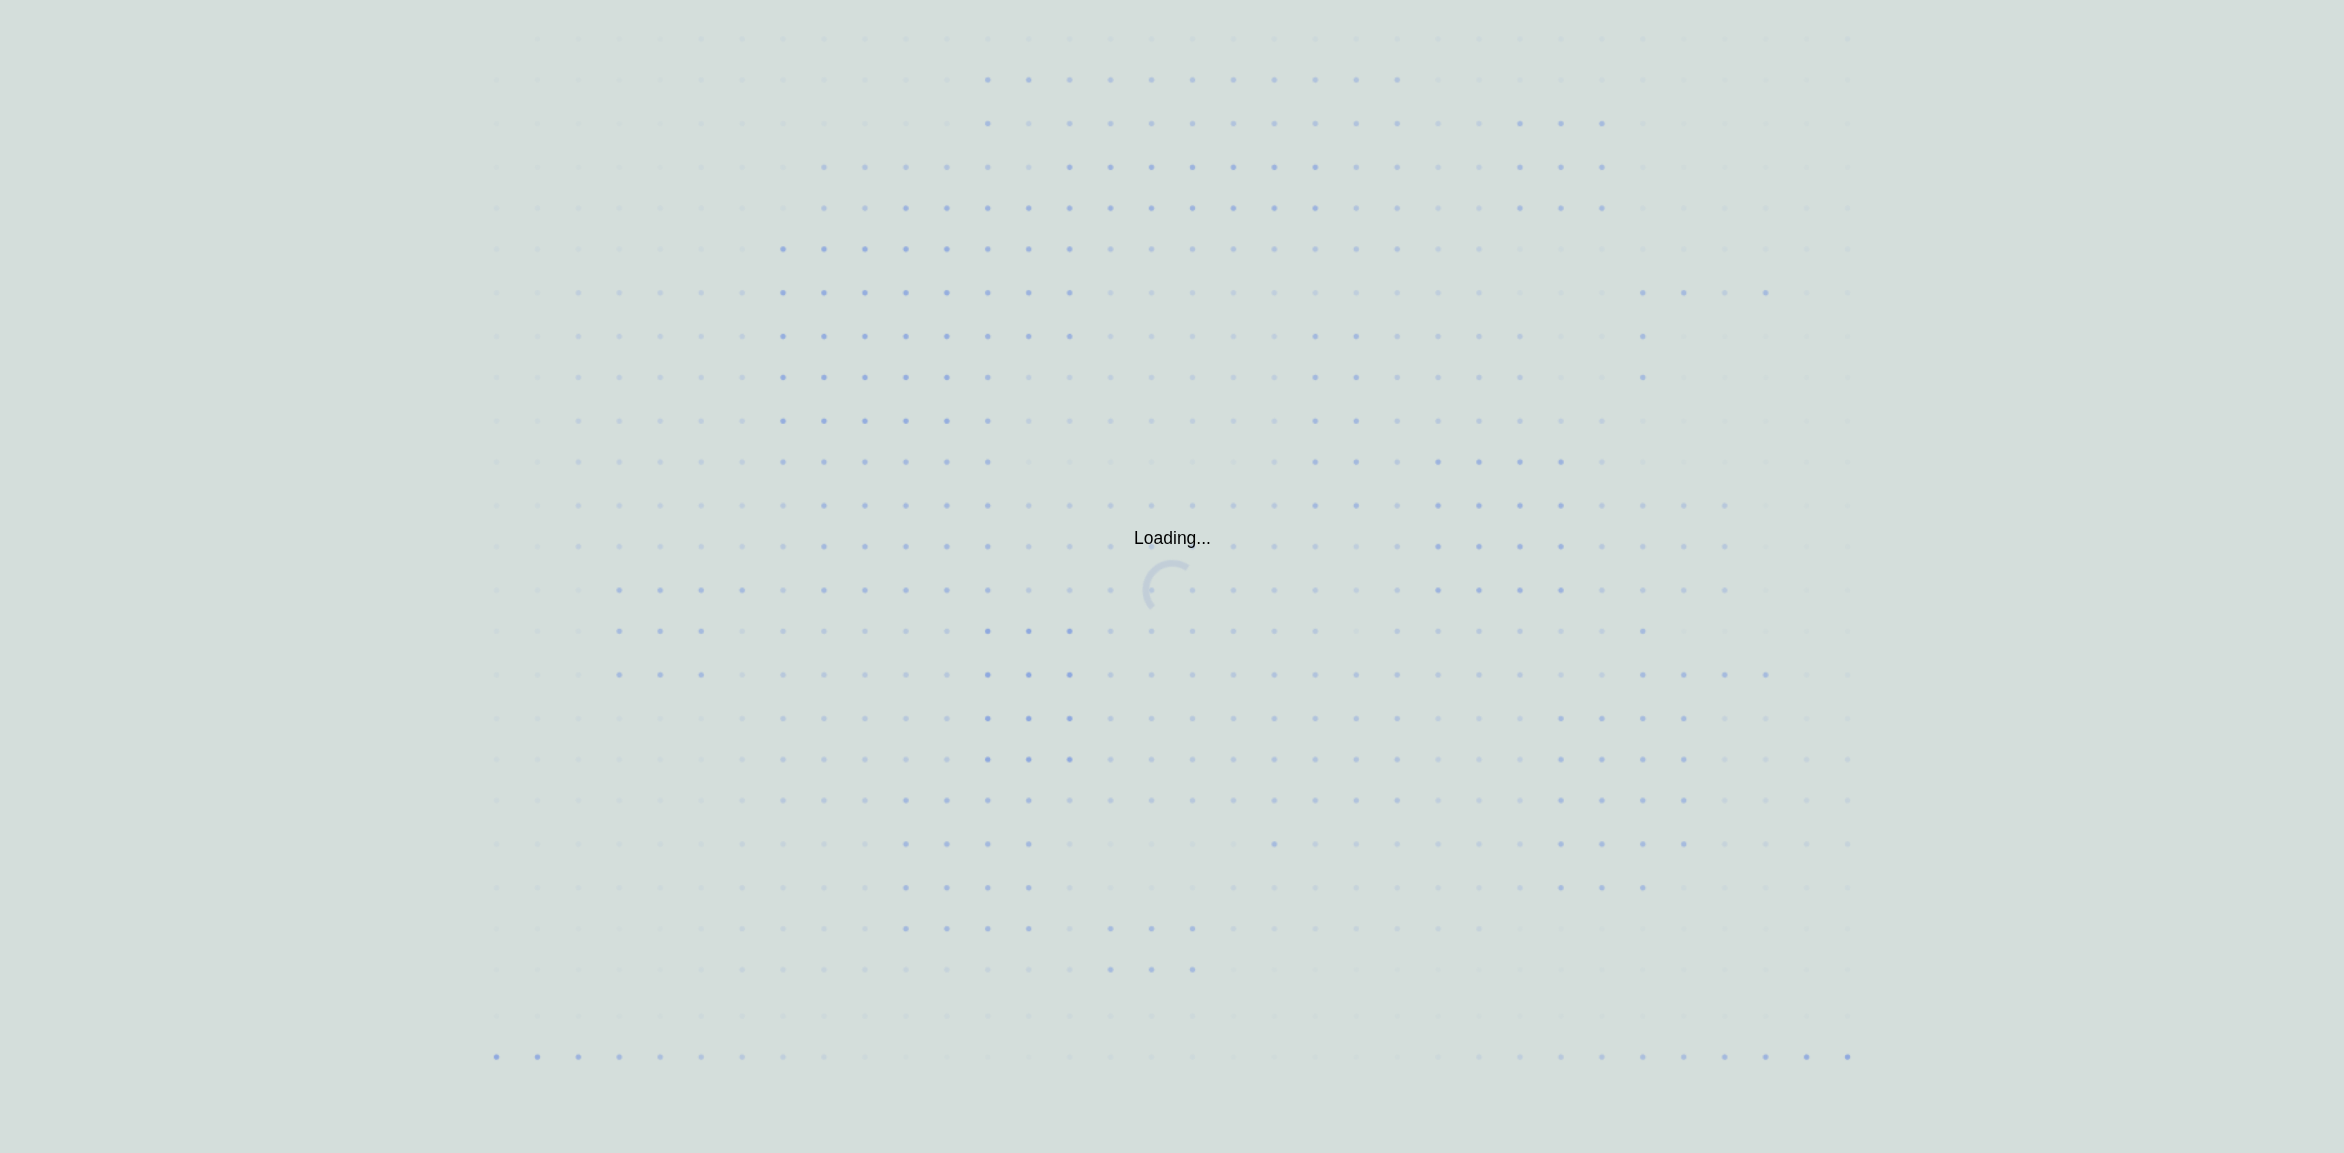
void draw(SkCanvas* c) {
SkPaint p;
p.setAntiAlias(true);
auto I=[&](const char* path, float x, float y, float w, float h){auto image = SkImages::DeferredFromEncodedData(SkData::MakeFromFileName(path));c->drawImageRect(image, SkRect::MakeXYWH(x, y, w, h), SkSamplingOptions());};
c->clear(0xffffffff);
I("1.png",0,0,2344,1153);
}
